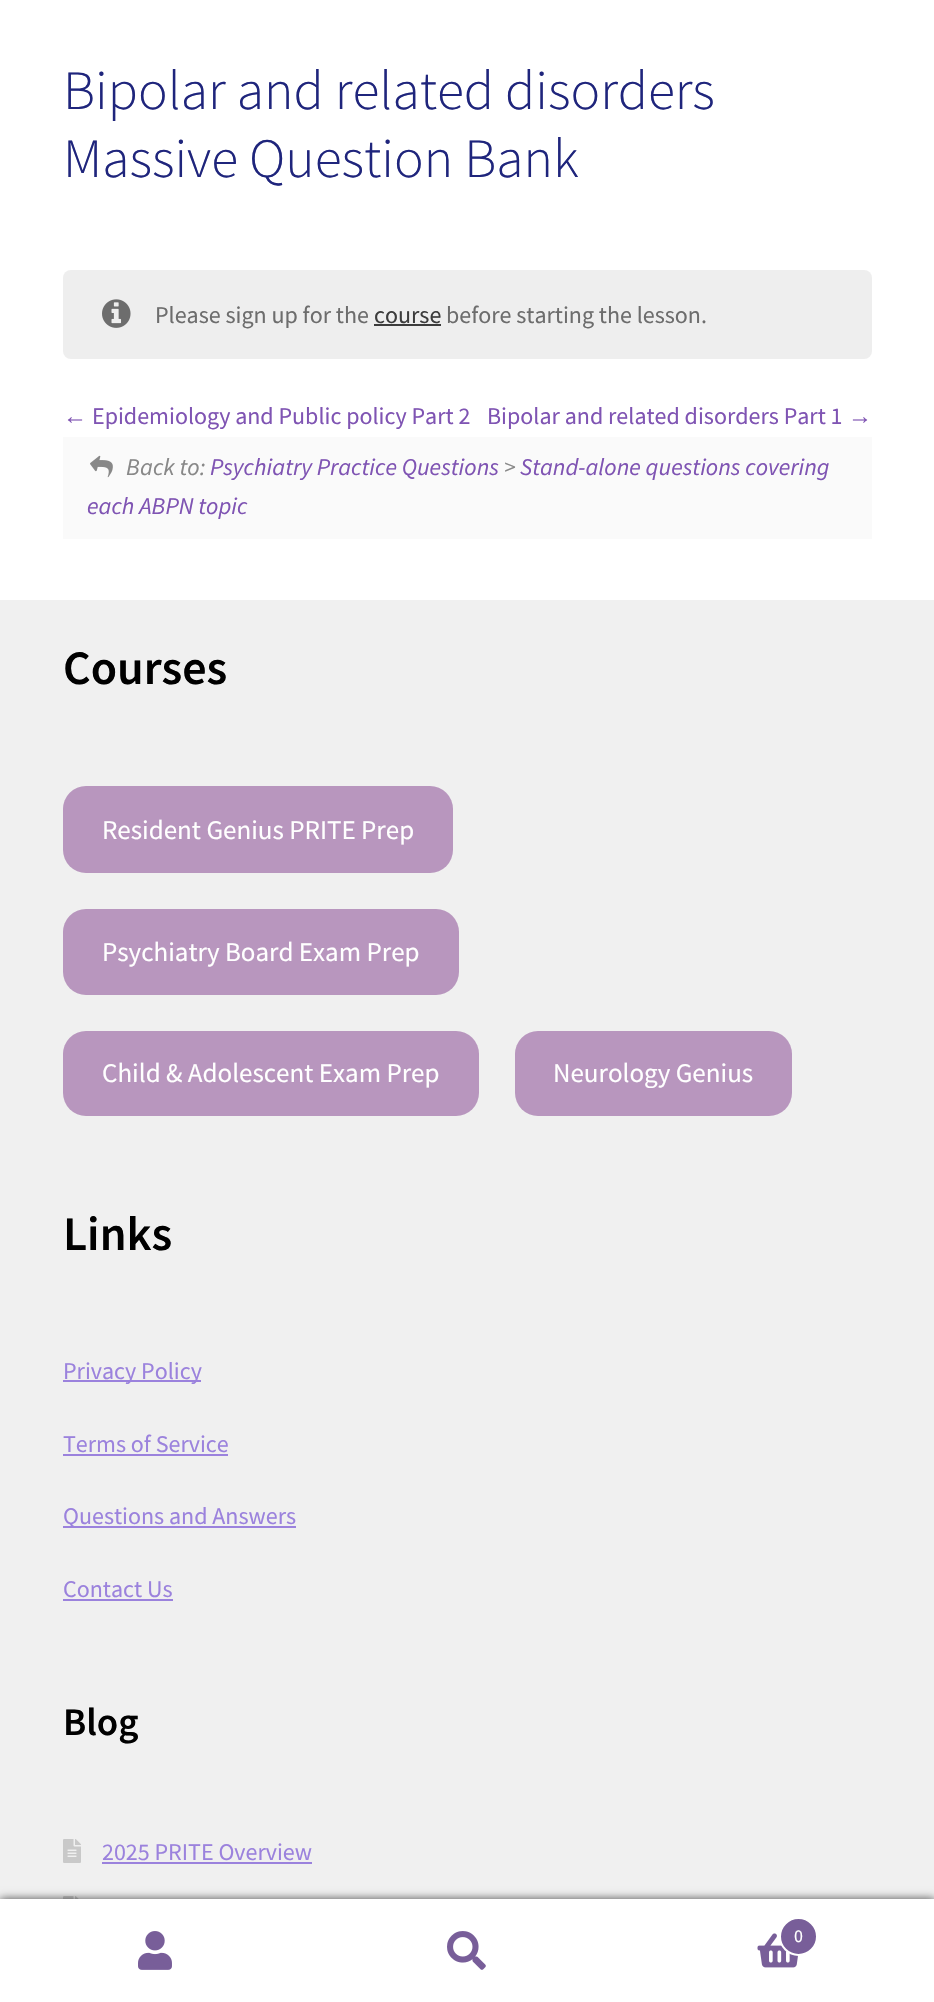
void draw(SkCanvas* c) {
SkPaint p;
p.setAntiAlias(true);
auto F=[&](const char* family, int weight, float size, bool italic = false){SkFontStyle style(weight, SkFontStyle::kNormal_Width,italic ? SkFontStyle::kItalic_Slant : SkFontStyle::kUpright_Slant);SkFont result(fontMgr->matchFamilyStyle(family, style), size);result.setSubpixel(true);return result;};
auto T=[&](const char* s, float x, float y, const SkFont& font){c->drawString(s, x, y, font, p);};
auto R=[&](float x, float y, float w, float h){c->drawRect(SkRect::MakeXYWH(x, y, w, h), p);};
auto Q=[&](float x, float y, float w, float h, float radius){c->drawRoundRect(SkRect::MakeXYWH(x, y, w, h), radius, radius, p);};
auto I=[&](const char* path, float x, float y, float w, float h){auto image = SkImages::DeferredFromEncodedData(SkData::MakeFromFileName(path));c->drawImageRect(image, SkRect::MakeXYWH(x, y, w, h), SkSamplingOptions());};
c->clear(0xffffffff);
auto f1 = F("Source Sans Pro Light",300,55.5);
p.setColor(0xff1f257c);
T("Bipolar and related disorders",63,109,f1);
T("Massive Question Bank",63,177,f1);
p.setColor(0xffeeeeee);
Q(63,270,809,89,8);
I("1.png",102,299,29,29);
auto f2 = F("Source Sans Pro",400,24);
p.setColor(0xff6d6d6d);
T("Please sign up for the",155,323,f2);
p.setColor(0xff3c3c3c);
T("course",374,323,f2);
R(374,324,67,2);
p.setColor(0xff6d6d6d);
T("before starting the lesson.",446,323,f2);
auto f3 = F("Liberation Sans",400,24);
p.setColor(0xff7f54b3);
T("←",63,424,f3);
T("Epidemiology and Public policy Part 2",92,424,f2);
T("Bipolar and related disorders Part 1",487,424,f2);
T("→",848,424,f3);
p.setColor(0xfffafafa);
R(63,437,809,102);
I("2.png",90,455,23,23);
auto f4 = F("Source Sans Pro",400,24,true);
p.setColor(0xff888888);
T("Back to:",126,475,f4);
p.setColor(0xff7f54b3);
T("Psychiatry Practice Questions",210,475,f4);
p.setColor(0xff888888);
T(">",504,475,f4);
p.setColor(0xff7f54b3);
T("Stand-alone questions covering",520,475,f4);
T("each ABPN topic",87,514,f4);
p.setColor(0xfff0f0f0);
R(0,600,934,1299);
auto f5 = F("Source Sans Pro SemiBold",600,48);
p.setColor(0xff000000);
T("Courses",63,684,f5);
p.setColor(0xffb896be);
Q(63,786,390,87,23);
auto f6 = F("Source Sans Pro",400,27);
p.setColor(0xffffffff);
T("Resident Genius PRITE Prep",102,839,f6);
p.setColor(0xffb896be);
Q(63,909,396,86,23);
p.setColor(0xffffffff);
T("Psychiatry Board Exam Prep",102,961,f6);
p.setColor(0xffb896be);
Q(63,1031,416,85,23);
p.setColor(0xffffffff);
T("Child & Adolescent Exam Prep",102,1082,f6);
p.setColor(0xffb896be);
Q(515,1031,277,85,23);
p.setColor(0xffffffff);
T("Neurology Genius",553,1082,f6);
p.setColor(0xff000000);
T("Links",63,1250,f5);
p.setColor(0xff9b82dd);
R(63,1380,138,2);
T("Privacy Policy",63,1379,f2);
T("Terms of Service",63,1452,f2);
R(63,1454,165,2);
R(63,1526,233,2);
T("Questions and Answers",63,1524,f2);
T("Contact Us",63,1597,f2);
R(63,1599,110,2);
auto f7 = F("Source Sans Pro SemiBold",600,39);
p.setColor(0xff000000);
T("Blog",63,1735,f7);
I("3.png",63,1839,18,24);
p.setColor(0xff9b82dd);
T("2025 PRITE Overview",102,1860,f2);
R(102,1862,210,2);
I("4.png",63,1896,16,3);
p.setColor(0xb3000000);
p.setMaskFilter(SkMaskFilter::MakeBlur(kNormal_SkBlurStyle, 4.5));
c->drawRect(SkRect::MakeXYWH(0,1899,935,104),p);
p.setMaskFilter(nullptr);
p.setColor(0xffffffff);
R(0,1899,934,2);
R(0,1901,934,101);
I("5.png",138,1931,34,39);
I("6.png",447,1931,39,39);
I("7.png",757,1933,41,35);
p.setColor(0xff785e99);
c->drawCircle(798.5,1936.5,18.5,p);
p.setStroke(true);
p.setStrokeWidth(2);
p.setColor(0xffffffff);
c->drawCircle(798.5,1936.5,18.5,p);
auto f8 = F("Source Sans Pro",400,18);
p.setStroke(false);
T("0",794,1942,f8);
}
